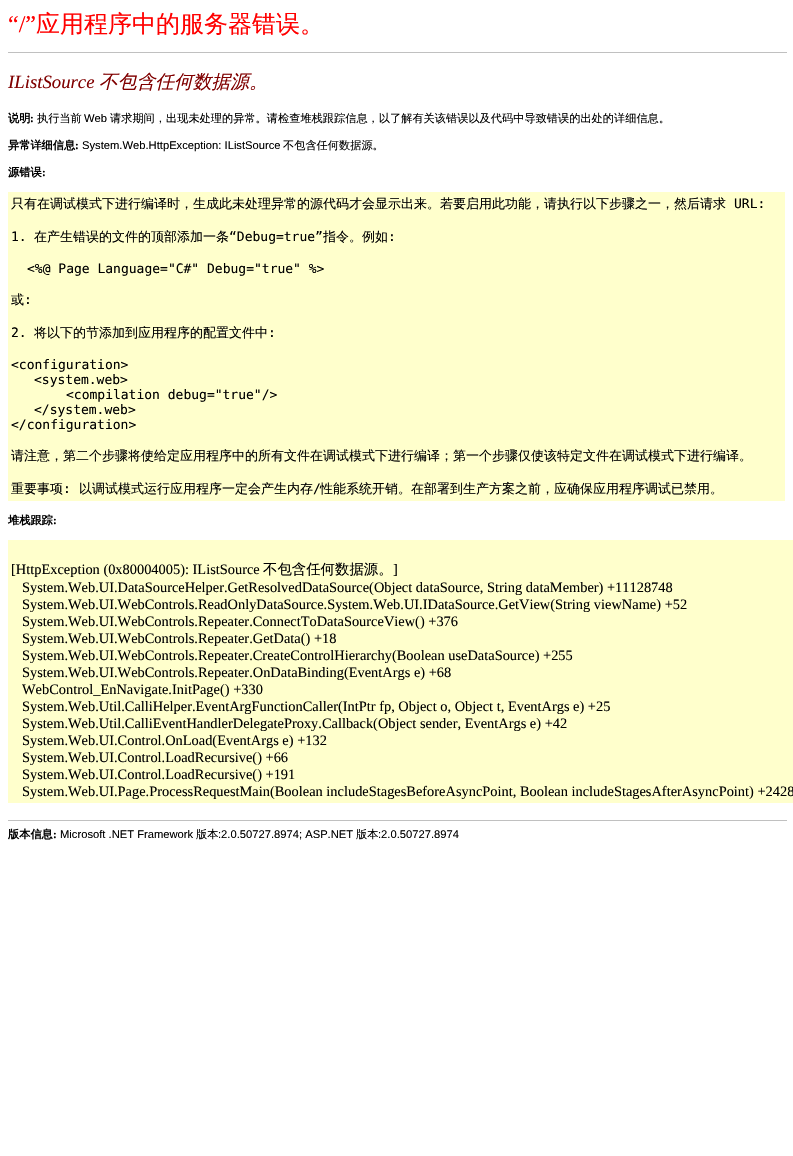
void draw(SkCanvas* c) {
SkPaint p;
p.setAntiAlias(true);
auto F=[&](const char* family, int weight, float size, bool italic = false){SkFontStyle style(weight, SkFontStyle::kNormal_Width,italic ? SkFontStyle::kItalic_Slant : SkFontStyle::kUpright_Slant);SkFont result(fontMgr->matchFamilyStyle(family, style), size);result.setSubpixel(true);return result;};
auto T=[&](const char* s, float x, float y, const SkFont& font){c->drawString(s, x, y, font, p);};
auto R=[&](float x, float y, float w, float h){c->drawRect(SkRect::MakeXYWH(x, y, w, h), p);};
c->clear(0xffffffff);
auto f1 = F("Liberation Serif",400,24);
p.setColor(0xffff0000);
T("“/”",8,32,f1);
auto f2 = F("WenQuanYi Zen Hei",500,24);
T("应用程序中的服务器错误。",36,32,f2);
p.setColor(0xffc0c0c0);
R(8,52,779,1);
auto f3 = F("Liberation Serif",400,18.75,true);
p.setColor(0xff800000);
T("IListSource",8,88,f3);
auto f4 = F("WenQuanYi Zen Hei",500,18.75,true);
T("不包含任何数据源。",99,88,f4);
auto f5 = F("WenQuanYi Zen Hei",700,11.2);
p.setColor(0xff000000);
T("说明",8,122,f5);
auto f6 = F("Liberation Serif",700,11.2);
T(":",30,122,f6);
auto f7 = F("WenQuanYi Zen Hei",500,11.2);
T("执行当前",37,122,f7);
auto f8 = F("Liberation Sans",400,11.2);
T("Web",84,122,f8);
T("请求期间，出现未处理的异常。请检查堆栈跟踪信息，以了解有关该错误以及代码中导致错误的出处的详细信息。",110,122,f7);
T("异常详细信息",8,149,f5);
T(":",75,149,f6);
T("System.Web.HttpException: IListSource",82,149,f8);
T("不包含任何数据源。",283,149,f7);
T("源错误",8,176,f5);
T(":",42,176,f6);
p.setColor(0xffffffcc);
R(8,192,777,309);
auto f9 = F("WenQuanYi Zen Hei",500,13);
p.setColor(0xff000000);
T("只有在调试模式下进行编译时，生成此未处理异常的源代码才会显示出来。若要启用此功能，请执行以下步骤之一，然后请求",11,208,f9);
auto f10 = F("DejaVu Sans Mono",400,13);
T("URL:",734,208,f10);
T("1.",11,241,f10);
T("在产生错误的文件的顶部添加一条",34,241,f9);
T("“Debug=true”",229,241,f10);
T("指令。例如",323,241,f9);
T(":",388,241,f10);
T("<%@ Page Language=\"C#\" Debug=\"true\" %>",27,273,f10);
T("或",11,304,f9);
T(":",24,304,f10);
T("2.",11,337,f10);
T("将以下的节添加到应用程序的配置文件中",34,337,f9);
T(":",268,337,f10);
T("<configuration>",11,369,f10);
T("<system.web>",34,384,f10);
T("<compilation debug=\"true\"/>",66,399,f10);
T("</system.web>",34,414,f10);
T("</configuration>",11,429,f10);
T("请注意，第二个步骤将使给定应用程序中的所有文件在调试模式下进行编译；第一个步骤仅使该特定文件在调试模式下进行编译。",11,460,f9);
T("重要事项",11,493,f9);
T(":",63,493,f10);
T("以调试模式运行应用程序一定会产生内存",79,493,f9);
T("/",313,493,f10);
T("性能系统开销。在部署到生产方案之前，应确保应用程序调试已禁用。",320,493,f9);
T("堆栈跟踪",8,524,f5);
T(":",53,524,f6);
p.setColor(0xffffffcc);
R(8,540,785,263);
auto f11 = F("Liberation Serif",400,14.4);
p.setColor(0xff000000);
T("[HttpException (0x80004005): IListSource",11,574,f11);
auto f12 = F("WenQuanYi Zen Hei",500,14.4);
T("不包含任何数据源。",263,574,f12);
T("]",393,574,f11);
T("System.Web.UI.DataSourceHelper.GetResolvedDataSource(Object dataSource, String dataMember) +11128748",22,592,f11);
T("System.Web.UI.WebControls.ReadOnlyDataSource.System.Web.UI.IDataSource.GetView(String viewName) +52",22,609,f11);
T("System.Web.UI.WebControls.Repeater.ConnectToDataSourceView() +376",22,626,f11);
T("System.Web.UI.WebControls.Repeater.GetData() +18",22,643,f11);
T("System.Web.UI.WebControls.Repeater.CreateControlHierarchy(Boolean useDataSource) +255",22,660,f11);
T("System.Web.UI.WebControls.Repeater.OnDataBinding(EventArgs e) +68",22,677,f11);
T("WebControl_EnNavigate.InitPage() +330",22,694,f11);
T("System.Web.Util.CalliHelper.EventArgFunctionCaller(IntPtr fp, Object o, Object t, EventArgs e) +25",22,711,f11);
T("System.Web.Util.CalliEventHandlerDelegateProxy.Callback(Object sender, EventArgs e) +42",22,728,f11);
T("System.Web.UI.Control.OnLoad(EventArgs e) +132",22,745,f11);
T("System.Web.UI.Control.LoadRecursive() +66",22,762,f11);
T("System.Web.UI.Control.LoadRecursive() +191",22,779,f11);
T("System.Web.UI.Page.ProcessRequestMain(Boolean includeStagesBeforeAsyncPoint, Boolean includeStagesAfterAsyncPoint) +2428",22,796,f11);
p.setColor(0xffc0c0c0);
R(8,820,779,1);
p.setColor(0xff000000);
T("版本信息",8,838,f5);
T(":",53,838,f6);
T("Microsoft .NET Framework",60,838,f8);
T("版本",196,838,f7);
T(":2.0.50727.8974; ASP.NET",218,838,f8);
T("版本",356,838,f7);
T(":2.0.50727.8974",378,838,f8);
}
